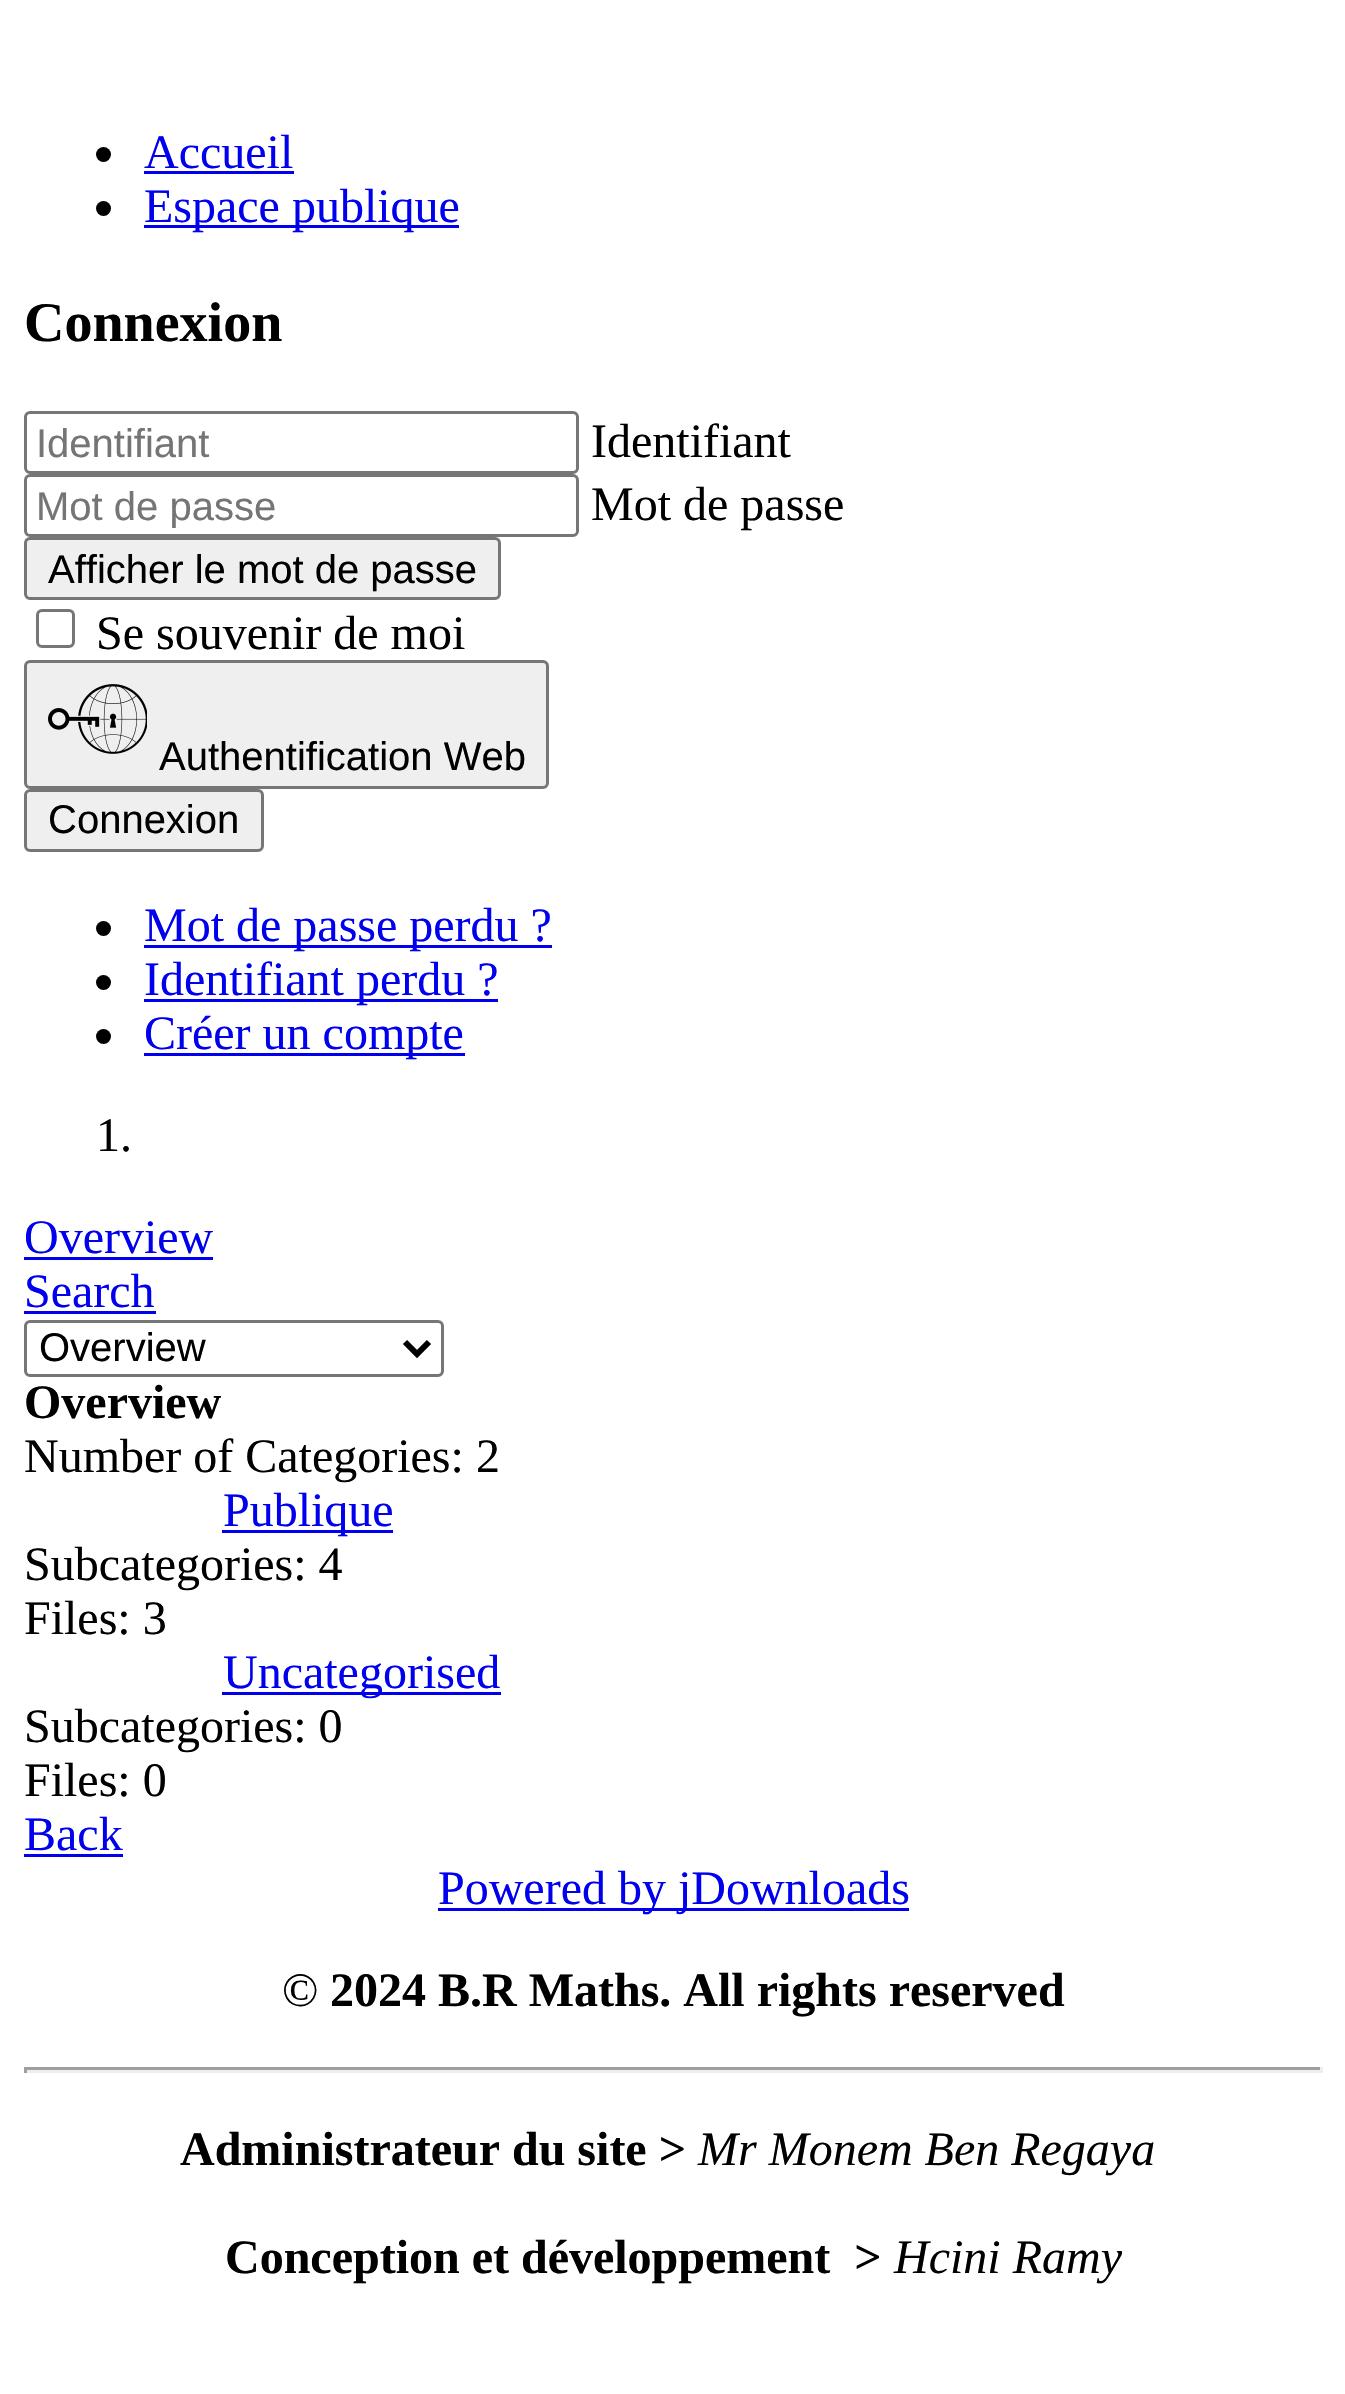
void draw(SkCanvas* c) {
SkPaint p;
p.setAntiAlias(true);
auto F=[&](const char* family, int weight, float size, bool italic = false){SkFontStyle style(weight, SkFontStyle::kNormal_Width,italic ? SkFontStyle::kItalic_Slant : SkFontStyle::kUpright_Slant);SkFont result(fontMgr->matchFamilyStyle(family, style), size);result.setSubpixel(true);return result;};
auto T=[&](const char* s, float x, float y, const SkFont& font){c->drawString(s, x, y, font, p);};
auto R=[&](float x, float y, float w, float h){c->drawRect(SkRect::MakeXYWH(x, y, w, h), p);};
auto I=[&](const char* path, float x, float y, float w, float h){auto image = SkImages::DeferredFromEncodedData(SkData::MakeFromFileName(path));c->drawImageRect(image, SkRect::MakeXYWH(x, y, w, h), SkSamplingOptions());};
auto P=[&](const char* data, bool evenOdd = false){SkPath result = *SkParsePath::FromSVGString(data);if (evenOdd) result.setFillType(SkPathFillType::kEvenOdd);return result;};
c->clear(0xffffffff);
p.setColor(0xff000000);
c->drawCircle(103.5,154.5,7.5,p);
auto f1 = F("Liberation Serif",400,48);
p.setColor(0xff0000ee);
T("Accueil",144,168,f1);
R(144,171,150,3);
p.setColor(0xff000000);
c->drawCircle(103.5,208.5,7.5,p);
p.setColor(0xff0000ee);
R(144,225,315,3);
T("Espace publique",144,222,f1);
auto f2 = F("Liberation Serif",700,56);
p.setColor(0xff000000);
T("Connexion",24,341,f2);
p.setStroke(true);
p.setStrokeWidth(3);
p.setColor(0xff767676);
c->drawRoundRect(SkRect::MakeXYWH(25.5,412.5,552,60),4.5,4.5,p);
auto f3 = F("Liberation Sans",400,40);
p.setStroke(false);
p.setColor(0xff757575);
T("Identifiant",36,457,f3);
p.setColor(0xff000000);
T("Identifiant",591,457,f1);
p.setStroke(true);
p.setColor(0xff767676);
c->drawRoundRect(SkRect::MakeXYWH(25.5,475.5,552,60),4.5,4.5,p);
c->save();
c->clipRect(SkRect::MakeXYWH(36,483,531,45));
p.setStroke(false);
p.setColor(0xff757575);
T("Mot de passe",36,520,f3);
c->restore();
p.setColor(0xff000000);
T("Mot de passe",591,520,f1);
p.setColor(0xffefefef);
c->drawRoundRect(SkRect::MakeXYWH(25.5,538.5,474,60),4.5,4.5,p);
p.setStroke(true);
p.setColor(0xff767676);
c->drawRoundRect(SkRect::MakeXYWH(25.5,538.5,474,60),4.5,4.5,p);
p.setStroke(false);
p.setColor(0xff000000);
T("Afficher le mot de passe",48,583,f3);
p.setStroke(true);
p.setColor(0xff767676);
c->drawRoundRect(SkRect::MakeXYWH(37.5,610.5,36,36),4.5,4.5,p);
p.setStroke(false);
p.setColor(0xff000000);
T("Se souvenir de moi",96,649,f1);
p.setColor(0xffefefef);
c->drawRoundRect(SkRect::MakeXYWH(25.5,661.5,522,126),4.5,4.5,p);
p.setStroke(true);
p.setColor(0xff767676);
c->drawRoundRect(SkRect::MakeXYWH(25.5,661.5,522,126),4.5,4.5,p);
I("1.png",48,684,99,70);
p.setStroke(false);
p.setColor(0xff000000);
T("Authentification Web",159,770,f3);
p.setColor(0xffefefef);
c->drawRoundRect(SkRect::MakeXYWH(25.5,790.5,237,60),4.5,4.5,p);
p.setStroke(true);
p.setColor(0xff767676);
c->drawRoundRect(SkRect::MakeXYWH(25.5,790.5,237,60),4.5,4.5,p);
p.setStroke(false);
p.setColor(0xff000000);
T("Connexion",48,833,f3);
c->drawCircle(103.5,928.5,7.5,p);
p.setColor(0xff0000ee);
R(144,945,408,3);
T("Mot de passe perdu ?",144,941,f1);
p.setColor(0xff000000);
c->drawCircle(103.5,982.5,7.5,p);
p.setColor(0xff0000ee);
R(144,999,354,3);
T("Identifiant perdu ?",144,995,f1);
p.setColor(0xff000000);
c->drawCircle(103.5,1036.5,7.5,p);
p.setColor(0xff0000ee);
R(144,1053,321,3);
T("Créer un compte",144,1049,f1);
p.setColor(0xff000000);
T("1.",96,1151,f1);
p.setColor(0xff0000ee);
T("Overview",24,1253,f1);
R(24,1257,189,3);
T("Search",24,1307,f1);
R(24,1311,132,3);
p.setStroke(true);
p.setColor(0xff767676);
c->drawRoundRect(SkRect::MakeXYWH(25.5,1321.5,417,54),4.5,4.5,p);
p.setStrokeWidth(6);
p.setColor(0xff000000);
c->drawPath(P("M405 1342l12 12l12-12"),p);
p.setStroke(false);
T("Overview",39,1361,f3);
auto f4 = F("Liberation Serif",700,48);
T("Overview",24,1418,f4);
T("Number of Categories: 2",24,1472,f1);
p.setColor(0xff0000ee);
R(222,1530,171,3);
T("Publique",223,1526,f1);
p.setColor(0xff000000);
T("Subcategories: 4",24,1580,f1);
T("Files: 3",24,1634,f1);
p.setColor(0xff0000ee);
R(222,1692,279,3);
T("Uncategorised",223,1688,f1);
p.setColor(0xff000000);
T("Subcategories: 0",24,1742,f1);
T("Files: 0",24,1796,f1);
p.setColor(0xff0000ee);
T("Back",24,1850,f1);
R(24,1854,99,3);
R(438,1908,471,3);
T("Powered by jDownloads",438,1904,f1);
p.setColor(0xff000000);
T("©",282,2006,f1);
T("2024 B.R Maths. All rights reserved",330,2006,f4);
p.setColor(0xff9f9f9f);
R(24,2067,1299,3);
p.setColor(0xffeeeeee);
R(1320,2067,3,6);
R(24,2070,1299,3);
p.setColor(0xff9f9f9f);
R(24,2067,3,6);
p.setColor(0xff000000);
T("Administrateur du site >",180,2165,f4);
auto f5 = F("Liberation Serif",400,48,true);
T("Mr Monem Ben Regaya",698,2165,f5);
T("Conception et développement  >",225,2273,f4);
T("Hcini Ramy",894,2273,f5);
}
